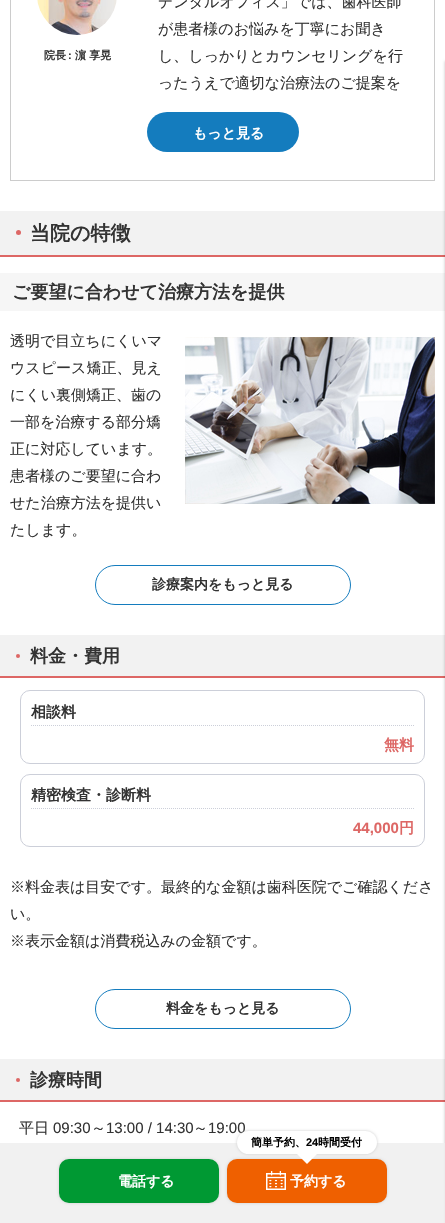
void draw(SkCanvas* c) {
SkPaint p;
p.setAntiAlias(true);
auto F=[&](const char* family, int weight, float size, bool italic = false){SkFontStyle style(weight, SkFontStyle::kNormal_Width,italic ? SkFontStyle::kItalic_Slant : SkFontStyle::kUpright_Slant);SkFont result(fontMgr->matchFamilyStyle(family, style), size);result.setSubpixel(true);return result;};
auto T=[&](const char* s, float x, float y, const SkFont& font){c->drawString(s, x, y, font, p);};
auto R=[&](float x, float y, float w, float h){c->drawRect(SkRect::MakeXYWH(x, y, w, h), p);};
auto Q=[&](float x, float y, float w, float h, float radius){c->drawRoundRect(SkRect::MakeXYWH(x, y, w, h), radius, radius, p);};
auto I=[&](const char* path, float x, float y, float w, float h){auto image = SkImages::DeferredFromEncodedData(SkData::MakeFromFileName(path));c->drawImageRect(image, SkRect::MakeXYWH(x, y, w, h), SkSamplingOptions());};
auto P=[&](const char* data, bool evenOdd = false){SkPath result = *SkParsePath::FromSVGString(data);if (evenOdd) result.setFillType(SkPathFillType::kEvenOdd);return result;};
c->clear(0xffffffff);
p.setStroke(true);
p.setStrokeWidth(1);
p.setColor(0xffcccccc);
c->drawRect(SkRect::MakeXYWH(10.5,-.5,424,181),p);
I("1.png",37,0,80,35);
auto f1 = F("WenQuanYi Zen Hei",700,11);
p.setStroke(false);
p.setColor(0xff333333);
T("院長",44,59,f1);
auto f2 = F("Liberation Sans",700,11);
T(":",68,59,f2);
T("濵 享晃",75,59,f1);
auto f3 = F("WenQuanYi Zen Hei",500,15);
T("デンタルオフィス」では、歯科医師",158,7,f3);
T("が患者様のお悩みを丁寧にお聞き",158,34,f3);
T("し、しっかりとカウンセリングを行",158,61,f3);
T("ったうえで適切な治療法のご提案を",158,88,f3);
p.setColor(0xff147cbe);
Q(147,112,152,40,20);
auto f4 = F("WenQuanYi Zen Hei",700,14);
p.setColor(0xffffffff);
T("もっと見る",193,138,f4);
p.setColor(0xfff2f2f2);
R(0,211,445,44);
p.setColor(0xffdd6765);
R(0,255,445,2);
c->drawCircle(18.5,232.5,2.5,p);
auto f5 = F("WenQuanYi Zen Hei",700,20);
p.setColor(0xff333333);
T("当院の特徴",30,240,f5);
p.setColor(0xfff6f6f6);
R(0,273,445,38);
auto f6 = F("WenQuanYi Zen Hei",700,18);
p.setColor(0xff333333);
T("ご要望に合わせて治療方法を提供",12,298,f6);
T("透明で目立ちにくいマ",10,346,f3);
T("ウスピース矯正、見え",10,373,f3);
T("にくい裏側矯正、歯の",10,400,f3);
T("一部を治療する部分矯",10,427,f3);
T("正に対応しています。",10,454,f3);
T("患者様のご要望に合わ",10,481,f3);
T("せた治療方法を提供い",10,508,f3);
T("たします。",10,535,f3);
I("2.png",185,337,250,167);
p.setStroke(true);
p.setColor(0xff147cbe);
c->drawRoundRect(SkRect::MakeXYWH(95.5,565.5,255,39),19.5,19.5,p);
p.setStroke(false);
p.setColor(0xff333333);
T("診療案内をもっと見る",152,589,f4);
p.setColor(0xfff2f2f2);
R(0,635,445,41);
p.setColor(0xffdd6765);
R(0,676,445,2);
c->drawCircle(18,656,2,p);
p.setColor(0xff333333);
T("料金・費用",30,662,f6);
p.setStroke(true);
p.setColor(0xffcccfd9);
c->drawRoundRect(SkRect::MakeXYWH(20.5,690.5,404,73),9.5,9.5,p);
p.setPathEffect(SkDashPathEffect::Make({{1,1}}, 0));
c->drawPath(P("M31 725.5h383"),p);
p.setPathEffect(nullptr);
auto f7 = F("WenQuanYi Zen Hei",700,15);
p.setStroke(false);
p.setColor(0xff333333);
T("相談料",31,717,f7);
p.setColor(0xffdd6765);
T("無料",384,750,f7);
p.setStroke(true);
p.setColor(0xffcccfd9);
c->drawRoundRect(SkRect::MakeXYWH(20.5,774.5,404,72),9.5,9.5,p);
p.setPathEffect(SkDashPathEffect::Make({{1,1}}, 0));
c->drawPath(P("M31 808.5h383"),p);
p.setPathEffect(nullptr);
p.setStroke(false);
p.setColor(0xff333333);
T("精密検査・診断料",31,800,f7);
auto f8 = F("Liberation Sans",700,15);
p.setColor(0xffdd6765);
T("44,000",353,833,f8);
T("円",399,833,f7);
p.setColor(0xff333333);
T("※料金表は目安です。最終的な金額は歯科医院でご確認くださ",10,892,f3);
T("い。",10,919,f3);
T("※表示金額は消費税込みの金額です。",10,946,f3);
p.setStroke(true);
p.setColor(0xff147cbe);
c->drawRoundRect(SkRect::MakeXYWH(95.5,989.5,255,39),19.5,19.5,p);
p.setStroke(false);
p.setColor(0xff333333);
T("料金をもっと見る",166,1013,f4);
p.setColor(0xfff2f2f2);
R(0,1059,445,41);
p.setColor(0xffdd6765);
R(0,1100,445,2);
c->drawCircle(18,1080,2,p);
p.setColor(0xff333333);
T("診療時間",30,1086,f6);
T("平日",19,1133,f3);
auto f9 = F("Liberation Sans",400,15);
T("09:30",53,1133,f9);
T("～",91,1133,f3);
T("13:00 / 14:30",106,1133,f9);
T("～",193,1133,f3);
T("19:00",208,1133,f9);
p.setColor(0x40000000);
p.setMaskFilter(SkMaskFilter::MakeBlur(kNormal_SkBlurStyle, 1.5));
c->drawRect(SkRect::MakeXYWH(445,61,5,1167),p);
p.setMaskFilter(nullptr);
p.setColor(0xcceeeeee);
R(0,1143,445,80);
p.setColor(0xffcccccc);
p.setMaskFilter(SkMaskFilter::MakeBlur(kNormal_SkBlurStyle, 1.5));
c->drawRoundRect(SkRect::MakeXYWH(59,1159,160,44),10,10,p);
p.setMaskFilter(nullptr);
p.setColor(0xff009933);
Q(59,1159,160,44,10);
p.setColor(0xffffffff);
T("電話する",118,1186,f4);
p.setColor(0xffcccccc);
p.setMaskFilter(SkMaskFilter::MakeBlur(kNormal_SkBlurStyle, 1.5));
c->drawRoundRect(SkRect::MakeXYWH(227,1159,160,44),10,10,p);
p.setMaskFilter(nullptr);
p.setColor(0xffef6000);
Q(227,1159,160,44,10);
p.setColor(0xffcccccc);
p.setMaskFilter(SkMaskFilter::MakeBlur(kNormal_SkBlurStyle, 1.5));
c->drawRoundRect(SkRect::MakeXYWH(237,1131,140,23),11.5,11.5,p);
p.setMaskFilter(nullptr);
p.setColor(0xffffffff);
Q(237,1131,140,23,11.5);
p.setColor(0xff000000);
T("簡単予約、",251,1146,f1);
T("24",306,1146,f2);
T("時間受付",318,1146,f1);
p.setColor(0xffffffff);
c->drawPath(P("M297 1154h20l-10 10z"),p);
I("3.png",266,1171,20,19);
T("予約する",290,1186,f4);
}
